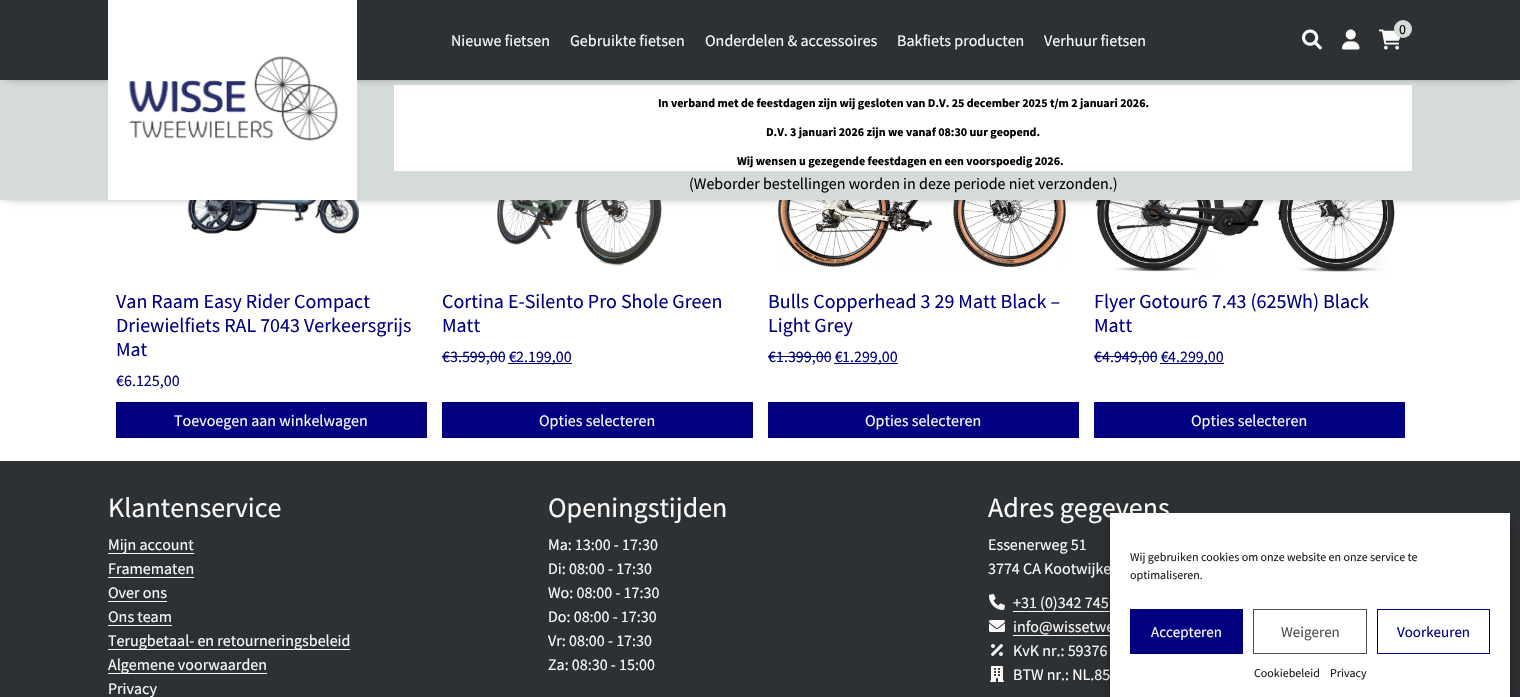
void draw(SkCanvas* c) {
SkPaint p;
p.setAntiAlias(true);
auto F=[&](const char* family, int weight, float size, bool italic = false){SkFontStyle style(weight, SkFontStyle::kNormal_Width,italic ? SkFontStyle::kItalic_Slant : SkFontStyle::kUpright_Slant);SkFont result(fontMgr->matchFamilyStyle(family, style), size);result.setSubpixel(true);return result;};
auto T=[&](const char* s, float x, float y, const SkFont& font){c->drawString(s, x, y, font, p);};
auto R=[&](float x, float y, float w, float h){c->drawRect(SkRect::MakeXYWH(x, y, w, h), p);};
auto I=[&](const char* path, float x, float y, float w, float h){auto image = SkImages::DeferredFromEncodedData(SkData::MakeFromFileName(path));c->drawImageRect(image, SkRect::MakeXYWH(x, y, w, h), SkSamplingOptions());};
c->clear(0xffffffff);
I("5.png",183,200,177,34);
I("6.png",497,200,200,66);
I("7.png",777,200,290,68);
I("8.png",1094,200,301,73);
p.setColor(0xff2e3134);
p.setMaskFilter(SkMaskFilter::MakeBlur(kNormal_SkBlurStyle, 5));
c->drawRect(SkRect::MakeXYWH(5,85,1510,110),p);
p.setMaskFilter(nullptr);
p.setColor(0xffd4dbda);
R(0,80,1520,120);
p.setColor(0xffffffff);
R(394,85,1018,86);
p.setColor(0xff2e3134);
p.setMaskFilter(SkMaskFilter::MakeBlur(kNormal_SkBlurStyle, 5));
c->drawRect(SkRect::MakeXYWH(5,5,1510,70),p);
p.setMaskFilter(nullptr);
R(0,0,1520,80);
p.setColor(0xffffffff);
R(108,0,249,200);
I("1.png",128,56,210,85);
I("2.png",1302,29,20,21);
I("3.png",1342,29,18,21);
I("4.png",1379,29,22,21);
p.setColor(0xffd4dbda);
c->drawCircle(1403,29,9,p);
auto f1 = F("Source Sans Pro",400,14);
p.setColor(0xff080705);
T("0",1399,34,f1);
auto f2 = F("Source Sans Pro",400,16);
p.setColor(0xfffafafa);
T("Nieuwe fietsen",451,46,f2);
T("Gebruikte fietsen",570,46,f2);
T("Onderdelen & accessoires",705,46,f2);
T("Bakfiets producten",897,46,f2);
T("Verhuur fietsen",1044,46,f2);
auto f3 = F("Source Sans Pro",700,12);
p.setColor(0xff000000);
T("In verband met de feestdagen zijn wij gesloten van D.V. 25 december 2025 t/m 2 januari 2026.",658,107,f3);
T("D.V. 3 januari 2026 zijn we vanaf 08:30 uur geopend.",766,136,f3);
T("Wij wensen u gezegende feestdagen en een voorspoedig 2026.",737,165,f3);
p.setColor(0xff080705);
T("(Weborder bestellingen worden in deze periode niet verzonden.)",689,189,f2);
auto f4 = F("Source Sans Pro",400,20);
p.setColor(0xff000080);
T("Van Raam Easy Rider Compact",116,308,f4);
T("Driewielfiets RAL 7043 Verkeersgrijs",116,332,f4);
T("Mat",116,356,f4);
T("€6.125,00",116,386,f2);
R(116,402,311,36);
p.setColor(0xfffafafa);
T("Toevoegen aan winkelwagen",174,426,f2);
p.setColor(0xff000080);
T("Cortina E-Silento Pro Shole Green",442,308,f4);
T("Matt",442,332,f4);
T("€3.599,00 €",442,362,f2);
R(442,356,63,1);
R(508,363,64,1);
T("2.199,00",516,362,f2);
R(442,402,311,36);
p.setColor(0xfffafafa);
T("Opties selecteren",539,426,f2);
p.setColor(0xff000080);
T("Bulls Copperhead 3 29 Matt Black –",768,308,f4);
T("Light Grey",768,332,f4);
T("€1.399,00 €",768,362,f2);
R(768,356,63,1);
R(834,363,64,1);
T("1.299,00",842,362,f2);
R(768,402,311,36);
p.setColor(0xfffafafa);
T("Opties selecteren",865,426,f2);
p.setColor(0xff000080);
T("Flyer Gotour6 7.43 (625Wh) Black",1094,308,f4);
T("Matt",1094,332,f4);
T("€4.949,00 €",1094,362,f2);
R(1094,356,63,1);
R(1160,363,64,1);
T("4.299,00",1168,362,f2);
R(1094,402,311,36);
p.setColor(0xfffafafa);
T("Opties selecteren",1191,426,f2);
p.setColor(0xff2e3134);
R(0,461,1520,236);
auto f5 = F("Source Sans Pro",400,28);
p.setColor(0xfffafafa);
T("Klantenservice",108,517,f5);
T("Mijn account",108,550,f2);
R(108,553,86,1);
T("Framematen",108,574,f2);
R(108,577,86,1);
T("Over ons",108,598,f2);
R(108,601,59,1);
T("Ons team",108,622,f2);
R(108,625,64,1);
T("Terugbetaal- en retourneringsbeleid",108,646,f2);
R(108,649,242,1);
T("Algemene voorwaarden",108,670,f2);
R(108,673,159,1);
T("Privacy",108,694,f2);
T("Openingstijden",548,517,f5);
T("Ma: 13:00 - 17:30",548,550,f2);
T("Di: 08:00 - 17:30",548,574,f2);
T("Wo: 08:00 - 17:30",548,598,f2);
T("Do: 08:00 - 17:30",548,622,f2);
T("Vr: 08:00 - 17:30",548,646,f2);
T("Za: 08:30 - 15:00",548,670,f2);
T("Adres gegevens",988,517,f5);
T("Essenerweg 51",988,550,f2);
T("3774 CA Kootwijke",988,574,f2);
I("9.png",989,594,16,16);
T("+31 (0)342 745",1013,608,f2);
R(1013,611,97,1);
I("10.png",989,620,16,12);
T("info@wissetwe",1013,632,f2);
R(1013,635,97,1);
I("11.png",991,644,12,12);
T("KvK nr.: 59376",1013,656,f2);
I("12.png",990,666,14,16);
T("BTW nr.: NL.85",1013,680,f2);
p.setColor(0x3b000000);
p.setMaskFilter(SkMaskFilter::MakeBlur(kNormal_SkBlurStyle, 3));
c->drawRect(SkRect::MakeXYWH(1110,519,400,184),p);
p.setMaskFilter(nullptr);
p.setColor(0x30000000);
p.setMaskFilter(SkMaskFilter::MakeBlur(kNormal_SkBlurStyle, 10));
c->drawRect(SkRect::MakeXYWH(1110,523,400,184),p);
p.setMaskFilter(nullptr);
p.setColor(0xffffffff);
R(1110,513,400,184);
auto f6 = F("Source Sans Pro",400,12);
p.setColor(0xff191e23);
T("Wij gebruiken cookies om onze website en onze service te",1130,561,f6);
T("optimaliseren.",1130,579,f6);
p.setColor(0xff000080);
R(1130,609,113,45);
auto f7 = F("Source Sans Pro",400,15);
p.setColor(0xfffafafa);
T("Accepteren",1151,637,f7);
p.setStroke(true);
p.setStrokeWidth(1);
p.setColor(0xff4c4e52);
c->drawRect(SkRect::MakeXYWH(1253.5,609.5,113,44),p);
p.setStroke(false);
T("Weigeren",1281,637,f7);
p.setStroke(true);
p.setColor(0xff000080);
c->drawRect(SkRect::MakeXYWH(1377.5,609.5,112,44),p);
p.setStroke(false);
T("Voorkeuren",1397,637,f7);
p.setColor(0xff191e23);
T("Cookiebeleid",1254,677,f6);
T("Privacy",1330,677,f6);
}
